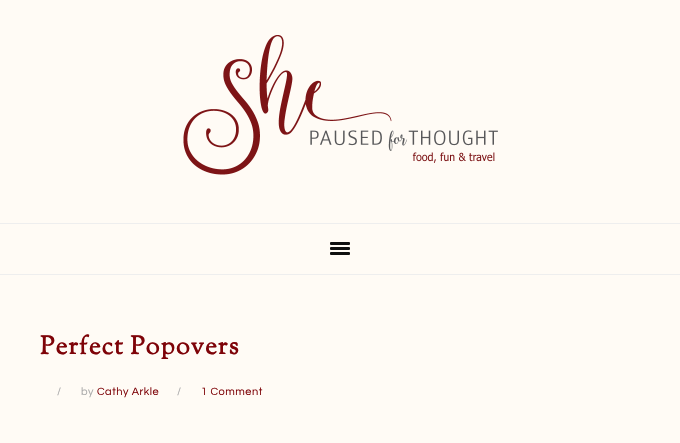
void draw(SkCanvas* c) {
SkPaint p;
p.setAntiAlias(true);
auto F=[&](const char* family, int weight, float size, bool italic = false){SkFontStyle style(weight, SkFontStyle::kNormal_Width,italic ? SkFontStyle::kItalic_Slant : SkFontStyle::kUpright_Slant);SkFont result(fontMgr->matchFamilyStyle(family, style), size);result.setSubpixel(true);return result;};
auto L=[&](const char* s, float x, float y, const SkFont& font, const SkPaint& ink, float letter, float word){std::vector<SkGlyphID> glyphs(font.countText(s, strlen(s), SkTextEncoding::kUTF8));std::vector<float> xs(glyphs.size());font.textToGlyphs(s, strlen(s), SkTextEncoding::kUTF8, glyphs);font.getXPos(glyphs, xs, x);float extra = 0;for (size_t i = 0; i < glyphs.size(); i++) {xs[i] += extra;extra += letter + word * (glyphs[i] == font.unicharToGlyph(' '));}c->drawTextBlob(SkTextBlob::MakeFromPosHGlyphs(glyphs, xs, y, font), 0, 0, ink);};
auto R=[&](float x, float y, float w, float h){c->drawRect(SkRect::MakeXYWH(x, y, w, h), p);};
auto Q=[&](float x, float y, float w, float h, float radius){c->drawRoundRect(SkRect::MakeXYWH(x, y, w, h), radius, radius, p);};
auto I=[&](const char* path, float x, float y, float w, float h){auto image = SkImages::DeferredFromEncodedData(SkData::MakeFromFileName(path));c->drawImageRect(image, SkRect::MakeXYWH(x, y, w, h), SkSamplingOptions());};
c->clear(0xfffffbf5);
I("1.png",183,35,315,140);
p.setColor(0xffeeeeee);
R(0,223,680,1);
R(0,274,680,1);
p.setColor(0xff101010);
Q(330,247,20,3,1);
Q(330,242,20,3,1);
Q(330,252,20,3,1);
auto f1 = F("Sorts Mill Goudy",700,25.5);
p.setColor(0xff7e0308);
L("Perfect Popovers",40,354,f1,p,1,0);
auto f2 = F("Questrial",400,11);
p.setColor(0xffaaaaaa);
L("/",57,395,f2,p,.5,0);
L("by",81,395,f2,p,.5,0);
p.setColor(0xff7e0308);
L("Cathy Arkle",97,395,f2,p,.5,0);
p.setColor(0xffaaaaaa);
L("/",177,395,f2,p,.5,0);
p.setColor(0xff7e0308);
L("1 Comment",201,395,f2,p,.5,0);
}
